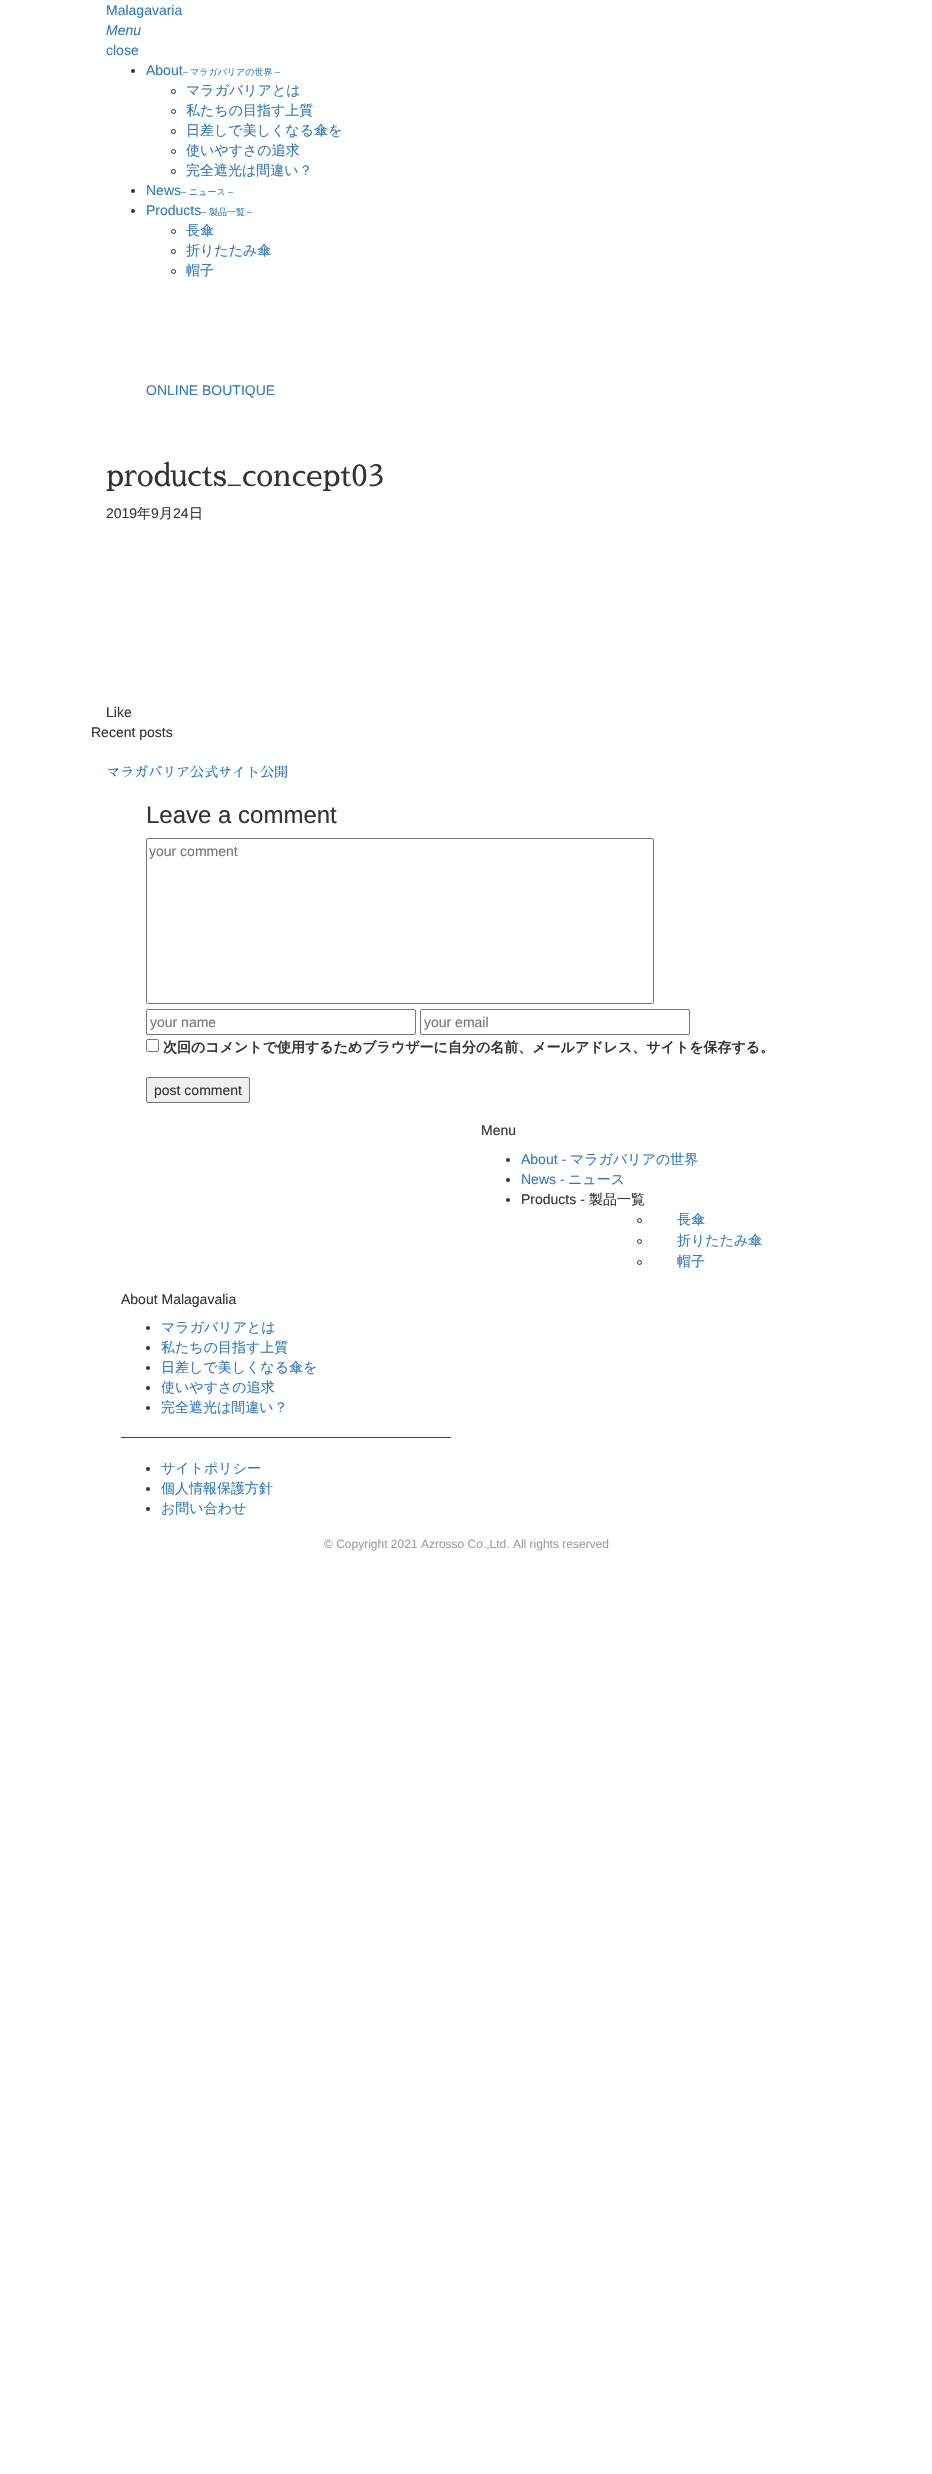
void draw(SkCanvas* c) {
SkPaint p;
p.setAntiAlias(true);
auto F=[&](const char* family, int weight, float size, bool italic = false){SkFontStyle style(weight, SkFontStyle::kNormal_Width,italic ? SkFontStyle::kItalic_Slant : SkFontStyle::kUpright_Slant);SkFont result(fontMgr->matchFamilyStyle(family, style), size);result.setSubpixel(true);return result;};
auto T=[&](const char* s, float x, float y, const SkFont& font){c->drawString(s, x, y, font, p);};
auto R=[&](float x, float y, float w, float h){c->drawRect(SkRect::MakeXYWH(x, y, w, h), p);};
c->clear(0xffffffff);
auto f1 = F("Liberation Sans",400,14);
p.setColor(0xff337ab7);
T("Malagavaria",106,15,f1);
auto f2 = F("Liberation Sans",400,14,true);
T("Menu",106,35,f2);
T("close",106,55,f1);
p.setColor(0xff333333);
c->drawCircle(133,71,2,p);
p.setColor(0xff337ab7);
T("About",146,75,f1);
auto f3 = F("Liberation Sans",400,9);
T("–",183,75,f3);
auto f4 = F("WenQuanYi Zen Hei",500,9);
T("マラガバリアの世界",190,75,f4);
T("–",275,75,f3);
p.setStroke(true);
p.setStrokeWidth(1);
p.setColor(0xff333333);
c->drawCircle(173.5,91.5,2,p);
auto f5 = F("WenQuanYi Zen Hei",500,14);
p.setStroke(false);
p.setColor(0xff337ab7);
T("マラガバリアとは",186,95,f5);
p.setStroke(true);
p.setColor(0xff333333);
c->drawCircle(173.5,111.5,2,p);
p.setStroke(false);
p.setColor(0xff337ab7);
T("私たちの目指す上質",186,115,f5);
p.setStroke(true);
p.setColor(0xff333333);
c->drawCircle(173.5,131.5,2,p);
p.setStroke(false);
p.setColor(0xff337ab7);
T("日差しで美しくなる傘を",186,135,f5);
p.setStroke(true);
p.setColor(0xff333333);
c->drawCircle(173.5,151.5,2,p);
p.setStroke(false);
p.setColor(0xff337ab7);
T("使いやすさの追求",186,155,f5);
p.setStroke(true);
p.setColor(0xff333333);
c->drawCircle(173.5,171.5,2,p);
p.setStroke(false);
p.setColor(0xff337ab7);
T("完全遮光は間違い？",186,175,f5);
p.setColor(0xff333333);
c->drawCircle(133,191,2,p);
p.setColor(0xff337ab7);
T("News",146,195,f1);
T("–",181,195,f3);
T("ニュース",189,195,f4);
T("–",228,195,f3);
p.setColor(0xff333333);
c->drawCircle(133,211,2,p);
p.setColor(0xff337ab7);
T("Products",146,215,f1);
T("–",201,215,f3);
T("製品一覧",209,215,f4);
T("–",247,215,f3);
p.setStroke(true);
p.setColor(0xff333333);
c->drawCircle(173.5,231.5,2,p);
p.setStroke(false);
p.setColor(0xff337ab7);
T("長傘",186,235,f5);
p.setStroke(true);
p.setColor(0xff333333);
c->drawCircle(173.5,251.5,2,p);
p.setStroke(false);
p.setColor(0xff337ab7);
T("折りたたみ傘",186,255,f5);
p.setStroke(true);
p.setColor(0xff333333);
c->drawCircle(173.5,271.5,2,p);
p.setStroke(false);
p.setColor(0xff337ab7);
T("帽子",186,275,f5);
T("ONLINE BOUTIQUE",146,395,f1);
auto f6 = F("Sawarabi Mincho",400,30);
p.setColor(0xff333333);
T("products_concept03",106,486,f6);
T("2019",106,518,f1);
T("年",137,518,f5);
T("9",151,518,f1);
T("月",159,518,f5);
T("24",173,518,f1);
T("日",189,518,f5);
T("Like",106,717,f1);
T("Recent posts",91,737,f1);
auto f7 = F("Sawarabi Mincho",400,14);
p.setColor(0xff337ab7);
T("マラガバリア公式サイト公開",106,777,f7);
auto f8 = F("Liberation Sans",400,24);
p.setColor(0xff333333);
T("Leave a comment",146,823,f8);
p.setStroke(true);
p.setColor(0xff767676);
c->drawRoundRect(SkRect::MakeXYWH(146.5,838.5,507,165),1.5,1.5,p);
p.setStroke(false);
p.setColor(0xff757575);
T("your comment",149,856,f1);
p.setStroke(true);
p.setColor(0xff767676);
c->drawRoundRect(SkRect::MakeXYWH(146.5,1009.5,269,25),1.5,1.5,p);
p.setStroke(false);
p.setColor(0xff757575);
T("your name",150,1027,f1);
p.setStroke(true);
p.setColor(0xff767676);
c->drawRoundRect(SkRect::MakeXYWH(420.5,1009.5,269,25),1.5,1.5,p);
p.setStroke(false);
p.setColor(0xff757575);
T("your email",424,1027,f1);
p.setStroke(true);
p.setColor(0xff767676);
c->drawRoundRect(SkRect::MakeXYWH(146.5,1039.5,12,12),1.5,1.5,p);
auto f9 = F("WenQuanYi Zen Hei",700,14);
p.setStroke(false);
p.setColor(0xff333333);
T("次回のコメントで使用するためブラウザーに自分の名前、メールアドレス、サイトを保存する。",163,1052,f9);
p.setColor(0xffefefef);
c->drawRoundRect(SkRect::MakeXYWH(146.5,1077.5,103,25),1.5,1.5,p);
p.setStroke(true);
p.setColor(0xff767676);
c->drawRoundRect(SkRect::MakeXYWH(146.5,1077.5,103,25),1.5,1.5,p);
p.setStroke(false);
p.setColor(0xff333333);
T("post comment",154,1095,f1);
T("Menu",481,1135,f1);
c->drawCircle(508,1160,2,p);
p.setColor(0xff337ab7);
T("About -",521,1164,f1);
T("マラガバリアの世界",570,1164,f5);
p.setColor(0xff333333);
c->drawCircle(508,1180,2,p);
p.setColor(0xff337ab7);
T("News -",521,1184,f1);
T("ニュース",568,1184,f5);
p.setColor(0xff333333);
c->drawCircle(508,1200,2,p);
T("Products -",521,1204,f1);
T("製品一覧",589,1204,f5);
p.setStroke(true);
c->drawCircle(639.5,1220.5,2,p);
p.setStroke(false);
p.setColor(0xff337ab7);
T("長傘",677,1224,f5);
p.setStroke(true);
p.setColor(0xff333333);
c->drawCircle(639.5,1241.5,2,p);
p.setStroke(false);
p.setColor(0xff337ab7);
T("折りたたみ傘",677,1245,f5);
p.setStroke(true);
p.setColor(0xff333333);
c->drawCircle(639.5,1262.5,2,p);
p.setStroke(false);
p.setColor(0xff337ab7);
T("帽子",677,1266,f5);
p.setColor(0xff333333);
T("About Malagavalia",121,1304,f1);
c->drawCircle(148,1328,2,p);
p.setColor(0xff337ab7);
T("マラガバリアとは",161,1332,f5);
p.setColor(0xff333333);
c->drawCircle(148,1348,2,p);
p.setColor(0xff337ab7);
T("私たちの目指す上質",161,1352,f5);
p.setColor(0xff333333);
c->drawCircle(148,1368,2,p);
p.setColor(0xff337ab7);
T("日差しで美しくなる傘を",161,1372,f5);
p.setColor(0xff333333);
c->drawCircle(148,1388,2,p);
p.setColor(0xff337ab7);
T("使いやすさの追求",161,1392,f5);
p.setColor(0xff333333);
c->drawCircle(148,1408,2,p);
p.setColor(0xff337ab7);
T("完全遮光は間違い？",161,1412,f5);
p.setColor(0xff424242);
R(121,1437,330,1);
p.setColor(0xff333333);
c->drawCircle(148,1469,2,p);
p.setColor(0xff337ab7);
T("サイトポリシー",161,1473,f5);
p.setColor(0xff333333);
c->drawCircle(148,1489,2,p);
p.setColor(0xff337ab7);
T("個人情報保護方針",161,1493,f5);
p.setColor(0xff333333);
c->drawCircle(148,1509,2,p);
p.setColor(0xff337ab7);
T("お問い合わせ",161,1513,f5);
auto f10 = F("Liberation Sans",400,12);
p.setColor(0xff9e9e9e);
T("© Copyright 2021 Azrosso Co.,Ltd. All rights reserved",324,1548,f10);
}
